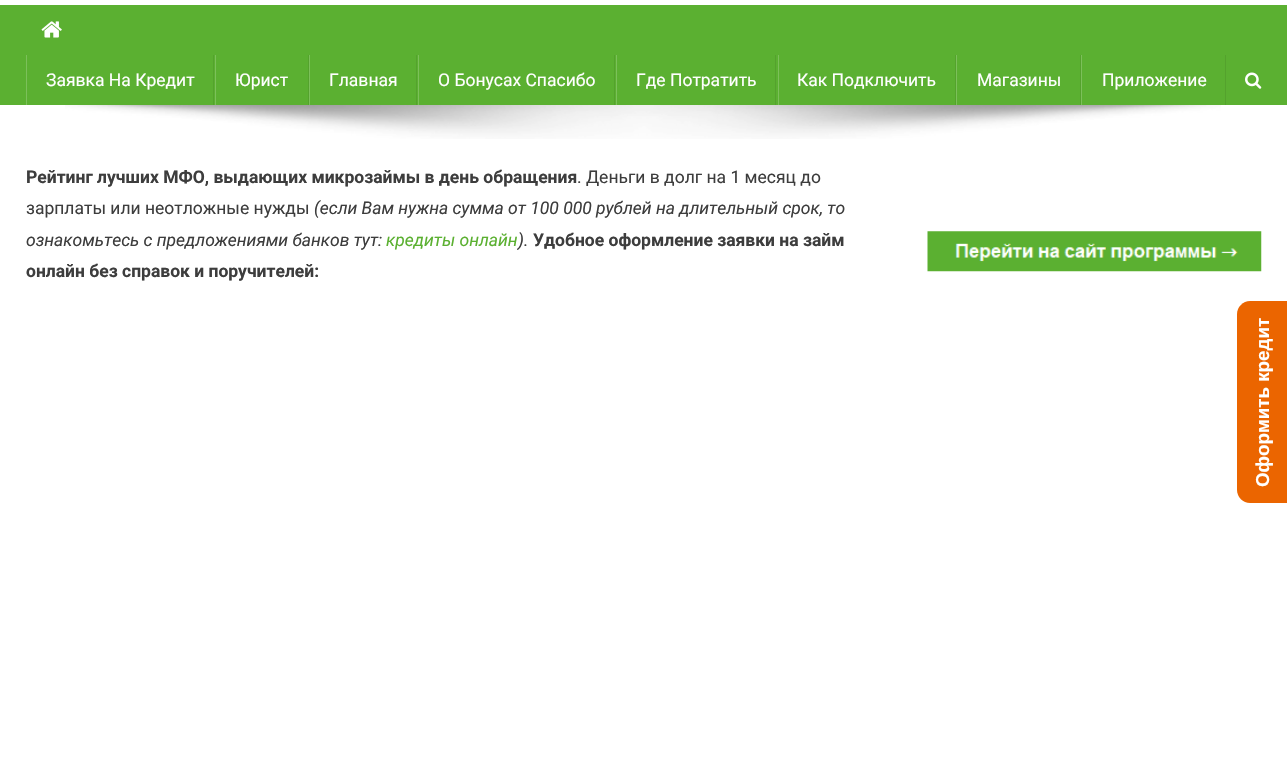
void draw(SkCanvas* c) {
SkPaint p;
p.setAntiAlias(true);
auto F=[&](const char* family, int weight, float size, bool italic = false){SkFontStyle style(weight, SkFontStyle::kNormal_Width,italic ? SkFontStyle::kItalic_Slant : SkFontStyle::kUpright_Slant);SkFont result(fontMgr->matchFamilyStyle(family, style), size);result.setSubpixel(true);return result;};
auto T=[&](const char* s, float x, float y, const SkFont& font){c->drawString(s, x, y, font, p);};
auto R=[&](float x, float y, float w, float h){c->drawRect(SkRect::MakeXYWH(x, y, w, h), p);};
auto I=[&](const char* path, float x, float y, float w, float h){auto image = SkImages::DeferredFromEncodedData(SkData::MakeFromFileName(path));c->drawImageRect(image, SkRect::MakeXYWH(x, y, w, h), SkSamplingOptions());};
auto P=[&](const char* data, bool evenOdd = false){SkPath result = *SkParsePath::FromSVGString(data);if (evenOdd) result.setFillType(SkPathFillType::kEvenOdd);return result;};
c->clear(0xffffffff);
p.setColor(0xff5bb031);
R(0,5,1287,100);
I("1.png",41,21,21,17);
p.setColor(0xff54a22d);
R(213,55,1,50);
p.setColor(0xff7cc05a);
R(26,55,1,50);
auto f1 = F("Roboto",400,17.5);
p.setColor(0xffffffff);
T("Заявка На Кредит",46,86,f1);
p.setColor(0xff54a22d);
R(308,55,1,50);
p.setColor(0xff7cc05a);
R(215,55,1,50);
p.setColor(0xffffffff);
T("Юрист",235,86,f1);
p.setColor(0xff54a22d);
R(416,55,1,50);
p.setColor(0xff7cc05a);
R(309,55,1,50);
p.setColor(0xffffffff);
T("Главная",329,86,f1);
p.setColor(0xff54a22d);
R(614,55,1,50);
p.setColor(0xff7cc05a);
R(418,55,1,50);
p.setColor(0xffffffff);
T("О Бонусах Спасибо",438,86,f1);
p.setColor(0xff54a22d);
R(775,55,1,50);
p.setColor(0xff7cc05a);
R(616,55,1,50);
p.setColor(0xffffffff);
T("Где Потратить",636,86,f1);
p.setColor(0xff54a22d);
R(955,55,1,50);
p.setColor(0xff7cc05a);
R(778,55,1,50);
p.setColor(0xffffffff);
T("Как Подключить",797,86,f1);
p.setColor(0xff54a22d);
R(1080,55,1,50);
p.setColor(0xff7cc05a);
R(956,55,1,50);
p.setColor(0xffffffff);
T("Магазины",977,86,f1);
p.setColor(0xff54a22d);
R(1225,55,1,50);
p.setColor(0xff7cc05a);
R(1081,55,1,50);
p.setColor(0xffffffff);
T("Приложение",1102,86,f1);
I("2.png",1245,72,17,17);
I("3.png",65,105,1156,34);
auto f2 = F("Roboto",700,17.5);
p.setColor(0xff3d3d3d);
T("Рейтинг лучших МФО, выдающих микрозаймы в день обращения",26,183,f2);
T(". Деньги в долг на 1 месяц до",577,183,f1);
T("зарплаты или неотложные нужды",26,214,f1);
auto f3 = F("Roboto",400,17.5,true);
T("(если Вам нужна сумма от 100 000 рублей на длительный срок, то",314,214,f3);
T("ознакомьтесь с предложениями банков тут:",26,246,f3);
p.setColor(0xff5bb031);
T("кредиты онлайн",386,246,f3);
p.setColor(0xff3d3d3d);
T(").",518,246,f3);
T("Удобное оформление заявки на займ",533,246,f2);
T("онлайн без справок и поручителей:",26,277,f2);
I("4.png",927,231,335,41);
p.setColor(0xffeb6500);
c->drawPath(P("M1237 490v-176c0-7 6-13 13-13h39v202h-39c-7 0-13-6-13-13z"),p);
auto f4 = F("Liberation Sans",700,18.75);
p.setColor(0xffffffff);
c->save();
c->rotate(-90,1269,487);
T("Оформить кредит",1269,487,f4);
c->restore();
}
